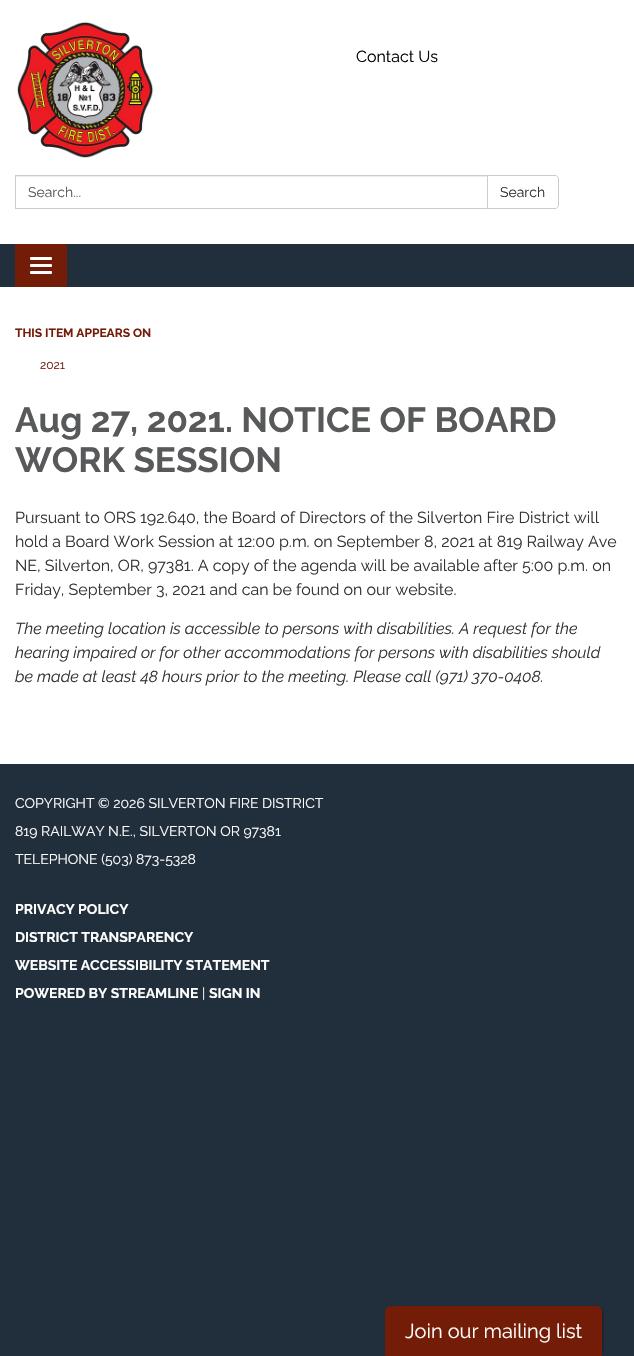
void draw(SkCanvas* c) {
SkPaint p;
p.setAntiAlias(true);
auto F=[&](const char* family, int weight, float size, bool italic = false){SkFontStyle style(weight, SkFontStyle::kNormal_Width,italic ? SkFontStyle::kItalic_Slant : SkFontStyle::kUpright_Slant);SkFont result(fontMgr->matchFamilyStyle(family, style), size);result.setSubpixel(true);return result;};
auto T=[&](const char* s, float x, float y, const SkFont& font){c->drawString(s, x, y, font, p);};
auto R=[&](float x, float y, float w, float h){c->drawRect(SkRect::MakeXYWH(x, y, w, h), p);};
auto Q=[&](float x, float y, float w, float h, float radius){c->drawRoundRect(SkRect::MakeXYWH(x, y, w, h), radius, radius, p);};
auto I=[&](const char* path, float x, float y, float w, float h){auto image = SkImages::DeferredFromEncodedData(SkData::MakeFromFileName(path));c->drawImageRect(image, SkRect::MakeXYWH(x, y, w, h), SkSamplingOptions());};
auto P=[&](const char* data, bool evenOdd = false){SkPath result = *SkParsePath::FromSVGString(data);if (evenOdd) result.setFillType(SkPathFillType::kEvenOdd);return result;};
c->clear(0xff212e3b);
p.setColor(0xffffffff);
R(0,0,634,244);
I("1.png",17,22,137,136);
auto f1 = F("Raleway",400,16);
p.setColor(0xff000000);
T("Contact Us",356,62,f1);
p.setColor(0xffececec);
R(16,176,471,1);
p.setStroke(true);
p.setStrokeWidth(1);
p.setColor(0xffcccccc);
c->drawRect(SkRect::MakeXYWH(15.5,175.5,472,33),p);
auto f2 = F("Raleway",400,14);
p.setStroke(false);
p.setColor(0xff58595b);
T("Search...",28,197,f2);
p.setColor(0xffffffff);
c->drawPath(P("M487.5 175.5h67.5c2 0 3.5 1.5 3.5 3.5v26c0 2-1.5 3.5-3.5 3.5h-67.5z"),p);
p.setStroke(true);
p.setColor(0xffcccccc);
c->drawPath(P("M487.5 175.5h67.5c2 0 3.5 1.5 3.5 3.5v26c0 2-1.5 3.5-3.5 3.5h-67.5z"),p);
p.setStroke(false);
p.setColor(0xff333333);
T("Search",500,197,f2);
p.setColor(0xff731d08);
R(15,244,52,43);
p.setColor(0xffffffff);
Q(30,257,22,3,1);
Q(30,264,22,3,1);
Q(30,271,22,3,1);
R(0,287,634,477);
auto f3 = F("Raleway",700,12);
p.setColor(0xff731d08);
T("THIS ITEM APPEARS ON",15,337,f3);
auto f4 = F("Raleway",400,12);
T("2021",40,369,f4);
auto f5 = F("Raleway",700,35);
p.setColor(0xff58595b);
T("Aug 27, 2021. NOTICE OF BOARD",15,432,f5);
T("WORK SESSION",15,472,f5);
p.setColor(0xff333333);
T("Pursuant to ORS 192.640, the Board of Directors of the Silverton Fire District will",15,523,f1);
T("hold a Board Work Session at 12:00 p.m. on September 8, 2021 at 819 Railway Ave",15,547,f1);
T("NE, Silverton, OR, 97381. A copy of the agenda will be available after 5:00 p.m. on",15,571,f1);
T("Friday, September 3, 2021 and can be found on our website.",15,595,f1);
auto f6 = F("Raleway",400,16,true);
T("The meeting location is accessible to persons with disabilities. A request for the",15,634,f6);
T("hearing impaired or for other accommodations for persons with disabilities should",15,658,f6);
T("be made at least 48 hours prior to the meeting. Please call (971) 370-0408.",15,682,f6);
p.setColor(0xffffffff);
T("COPYRIGHT © 2026 SILVERTON FIRE DISTRICT",15,808,f2);
T("819 RAILWAY N.E., SILVERTON OR 97381",15,836,f2);
T("TELEPHONE (503) 873-5328",15,864,f2);
auto f7 = F("Raleway",700,14);
T("PRIVACY POLICY",15,914,f7);
T("DISTRICT TRANSPARENCY",15,942,f7);
T("WEBSITE ACCESSIBILITY STATEMENT",15,970,f7);
T("POWERED BY STREAMLINE",15,998,f7);
T("|",202,998,f2);
T("SIGN IN",209,998,f7);
p.setColor(0x4d000000);
p.setMaskFilter(SkMaskFilter::MakeBlur(kNormal_SkBlurStyle, 1.5));
c->drawRoundRect(SkRect::MakeXYWH(386,1307,217,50),6,6,p);
p.setMaskFilter(nullptr);
p.setColor(0xff731d08);
c->drawPath(P("M391 1306h205c3.5 0 6 2.5 6 6v44h-217v-44c0-3.5 2.5-6 6-6z"),p);
auto f8 = F("Raleway",400,20);
p.setColor(0xffffffff);
T("Join our mailing list",405,1338,f8);
}
